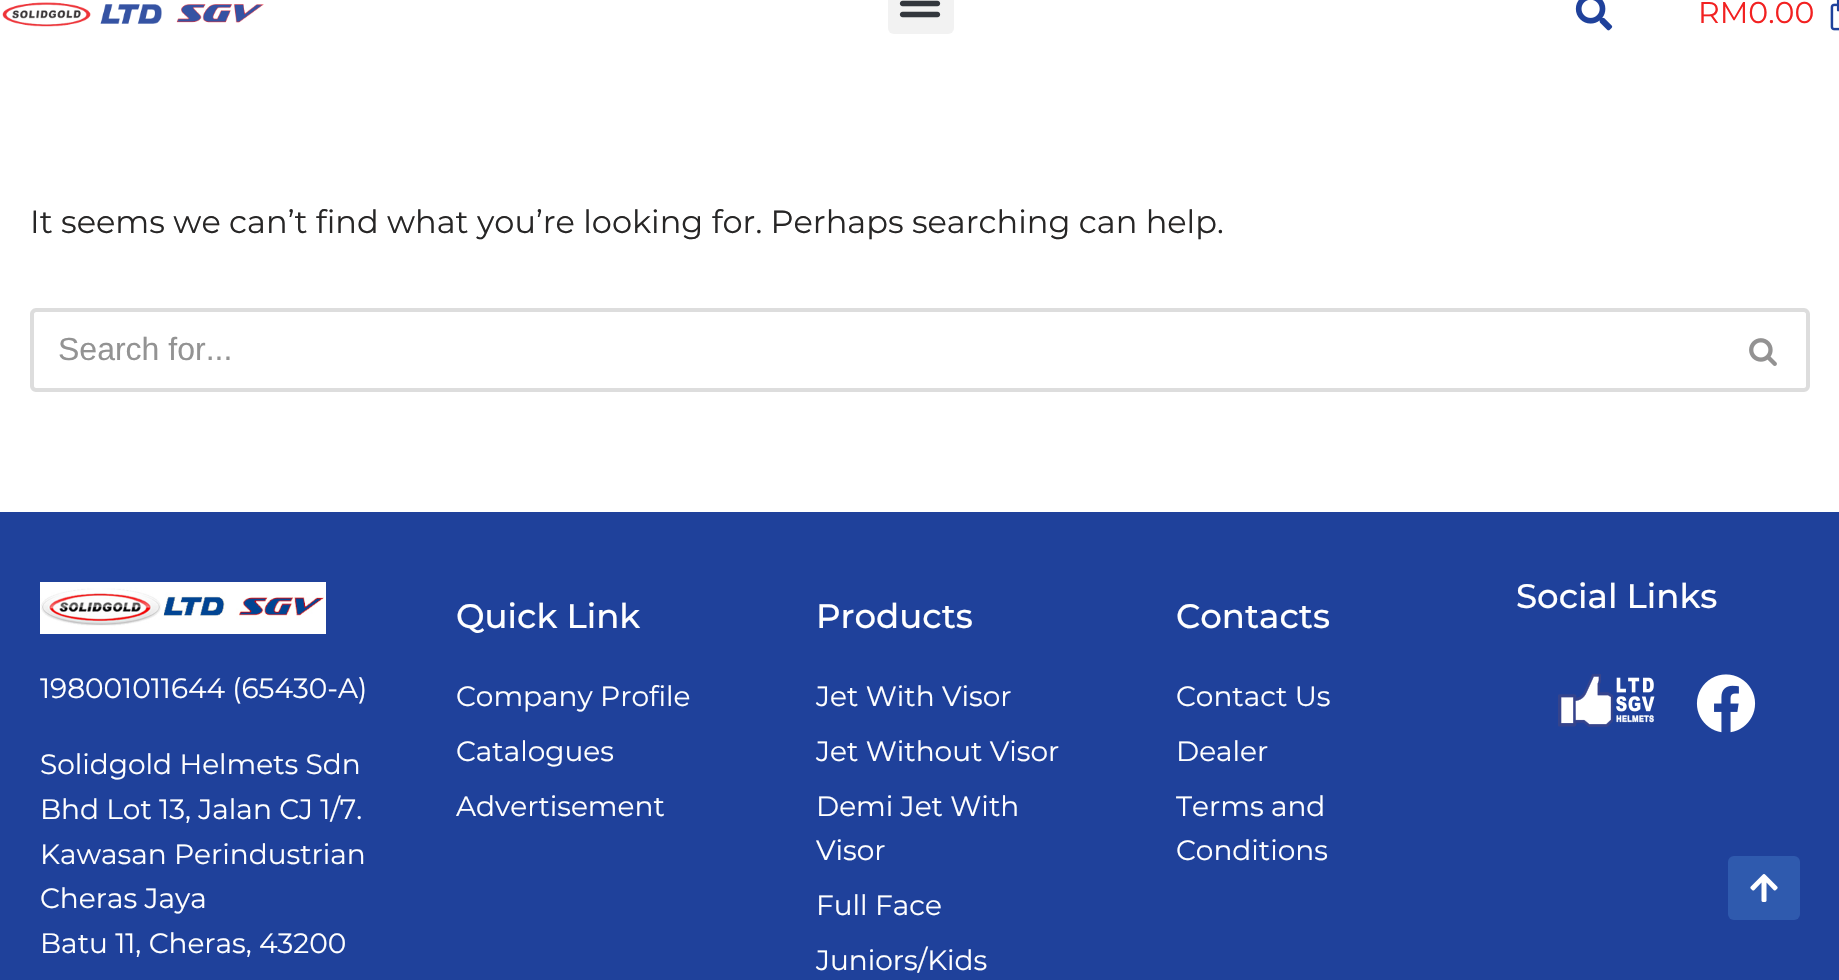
void draw(SkCanvas* c) {
SkPaint p;
p.setAntiAlias(true);
auto F=[&](const char* family, int weight, float size, bool italic = false){SkFontStyle style(weight, SkFontStyle::kNormal_Width,italic ? SkFontStyle::kItalic_Slant : SkFontStyle::kUpright_Slant);SkFont result(fontMgr->matchFamilyStyle(family, style), size);result.setSubpixel(true);return result;};
auto T=[&](const char* s, float x, float y, const SkFont& font){c->drawString(s, x, y, font, p);};
auto R=[&](float x, float y, float w, float h){c->drawRect(SkRect::MakeXYWH(x, y, w, h), p);};
auto Q=[&](float x, float y, float w, float h, float radius){c->drawRoundRect(SkRect::MakeXYWH(x, y, w, h), radius, radius, p);};
auto I=[&](const char* path, float x, float y, float w, float h){auto image = SkImages::DeferredFromEncodedData(SkData::MakeFromFileName(path));c->drawImageRect(image, SkRect::MakeXYWH(x, y, w, h), SkSamplingOptions());};
auto P=[&](const char* data, bool evenOdd = false){SkPath result = *SkParsePath::FromSVGString(data);if (evenOdd) result.setFillType(SkPathFillType::kEvenOdd);return result;};
c->clear(0xffffffff);
I("1.png",2,2,262,25);
p.setColor(0xfff2f2f2);
Q(888,-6,66,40,6);
I("2.png",899,0,42,18);
I("3.png",1575,0,38,31);
auto f1 = F("Montserrat",400,30);
p.setColor(0xfff22121);
T("RM0.00",1698,23,f1);
I("4.png",1830,0,9,31);
auto f2 = F("Montserrat",400,32);
p.setColor(0xff272626);
T("It seems we can’t find what you’re looking for. Perhaps searching can help.",30,233,f2);
p.setColor(0xffdddddd);
c->drawPath(P("M36 308h1684v84h-1684c-3 0-6-3-6-6v-72c0-3 3-6 6-6zm0 4h1684v76h-1684c-1 0-2-1-2-2v-72c0-1 1-2 2-2z",true),p);
auto f3 = F("Liberation Sans",400,32);
p.setColor(0xff939393);
T("Search for...",58,360,f3);
p.setColor(0xffdddddd);
c->drawPath(P("M1720 308h84c3 0 6 3 6 6v72c0 3-3 6-6 6h-84zm0 4h84c1 0 2 1 2 2v72c0 1-1 2-2 2h-84z",true),p);
I("5.png",1749,338,28,28);
p.setColor(0xff1f419b);
R(0,512,1839,468);
auto f4 = F("Montserrat",500,34);
p.setColor(0xffffffff);
T("Social Links",1516,608,f4);
I("6.png",1558,674,97,53);
I("7.png",1696,674,60,59);
I("8.png",40,582,286,52);
auto f5 = F("Montserrat",400,28);
T("198001011644 (65430-A)",40,698,f5);
T("Solidgold Helmets Sdn",40,774,f5);
T("Bhd Lot 13, Jalan CJ 1/7.",40,819,f5);
T("Kawasan Perindustrian",40,864,f5);
T("Cheras Jaya",40,908,f5);
T("Batu 11, Cheras, 43200",40,953,f5);
T("Quick Link",456,628,f4);
T("Company Profile",456,706,f5);
T("Catalogues",456,761,f5);
T("Advertisement",456,816,f5);
T("Products",816,628,f4);
T("Jet With Visor",816,706,f5);
T("Jet Without Visor",816,761,f5);
T("Demi Jet With",816,816,f5);
T("Visor",816,860,f5);
T("Full Face",816,915,f5);
T("Juniors/Kids",816,970,f5);
T("Contacts",1176,628,f4);
T("Contact Us",1176,706,f5);
T("Dealer",1176,761,f5);
T("Terms and",1176,816,f5);
T("Conditions",1176,860,f5);
p.setColor(0xff2f5aae);
Q(1728,856,72,64,6);
I("9.png",1750,874,28,28);
}
